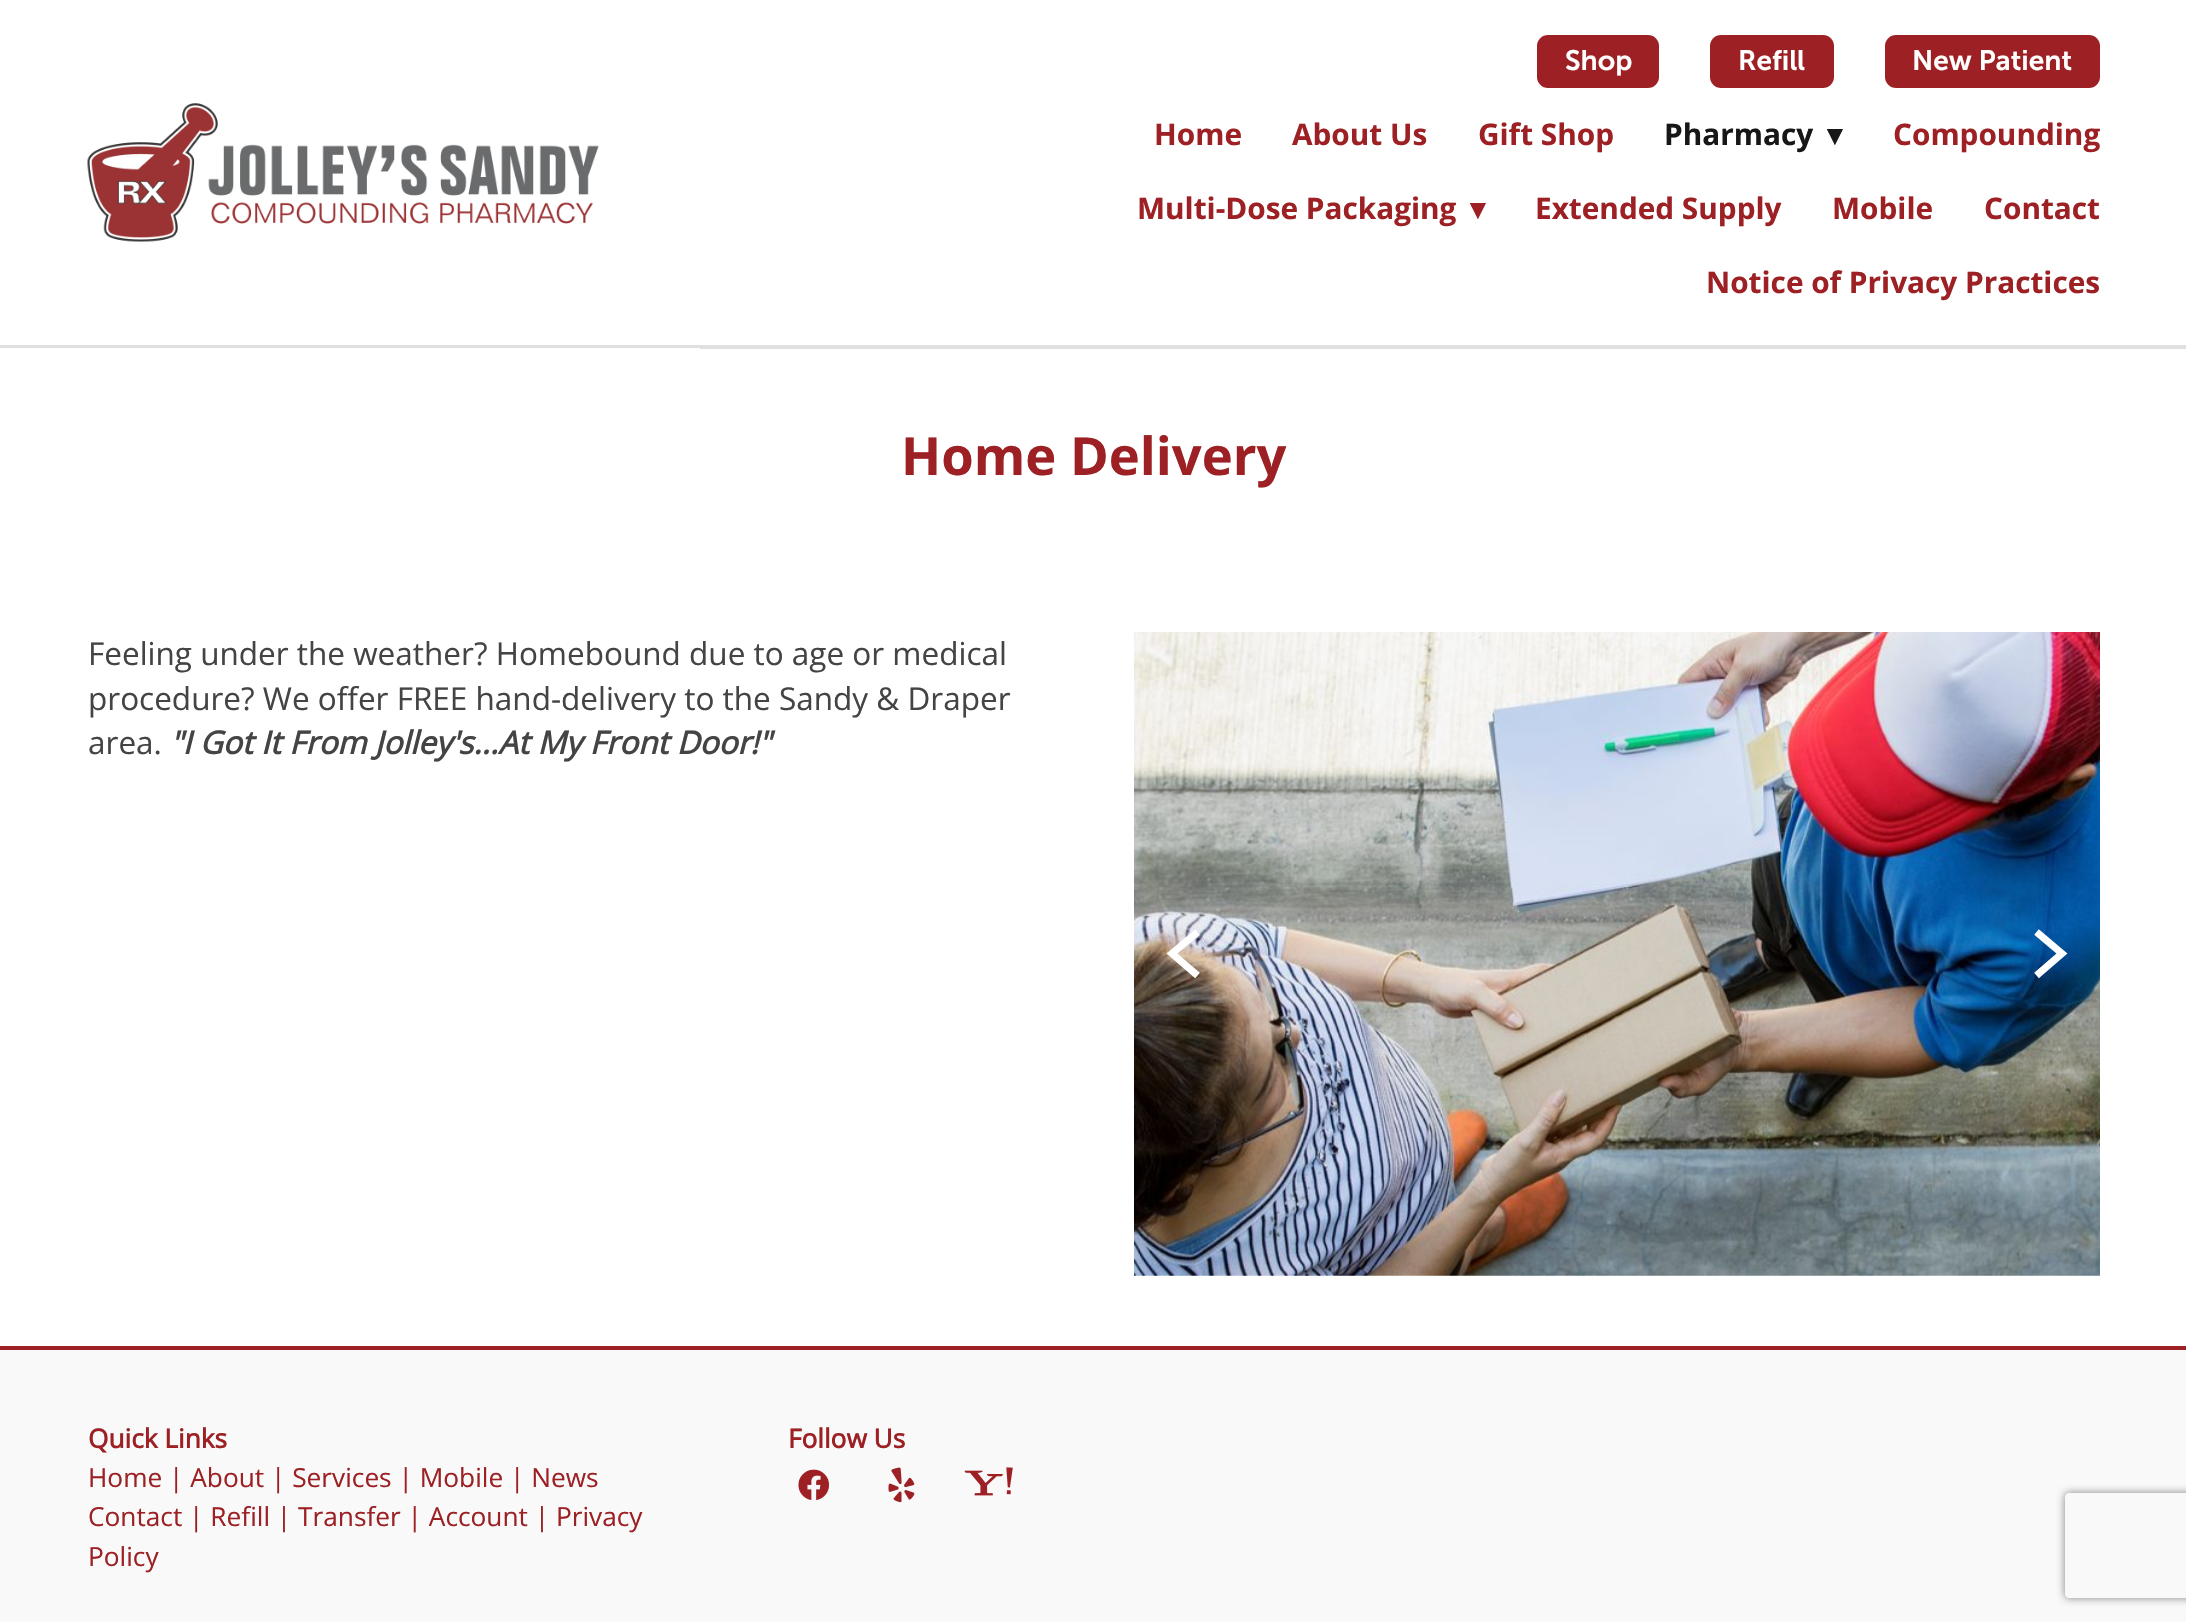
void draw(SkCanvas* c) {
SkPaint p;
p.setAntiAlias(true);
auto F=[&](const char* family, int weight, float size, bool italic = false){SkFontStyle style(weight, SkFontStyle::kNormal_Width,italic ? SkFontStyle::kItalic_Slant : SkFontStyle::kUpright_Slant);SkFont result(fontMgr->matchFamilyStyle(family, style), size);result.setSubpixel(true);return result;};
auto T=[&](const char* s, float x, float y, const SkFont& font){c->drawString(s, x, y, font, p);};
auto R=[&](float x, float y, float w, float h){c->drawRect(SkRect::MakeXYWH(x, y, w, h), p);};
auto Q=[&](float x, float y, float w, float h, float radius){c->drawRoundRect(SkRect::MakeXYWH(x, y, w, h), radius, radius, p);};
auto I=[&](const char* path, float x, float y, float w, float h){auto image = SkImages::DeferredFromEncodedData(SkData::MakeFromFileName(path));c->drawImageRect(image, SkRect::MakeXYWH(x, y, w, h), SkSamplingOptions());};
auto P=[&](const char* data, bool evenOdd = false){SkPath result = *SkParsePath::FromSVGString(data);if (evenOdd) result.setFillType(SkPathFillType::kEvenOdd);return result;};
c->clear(0xffffffff);
p.setColor(0xffe0e0e0);
R(0,345,700,3);
I("1.png",87,103,512,139);
R(700,345,1486,4);
p.setColor(0xff9d2124);
Q(1537,35,122,53,11);
auto f1 = F("Museo Sans",600,28);
p.setColor(0xffffffff);
T("Shop",1565,70,f1);
p.setColor(0xff9d2124);
Q(1710,35,124,53,11);
p.setColor(0xffffffff);
T("Refill",1738,70,f1);
p.setColor(0xff9d2124);
Q(1885,35,215,53,11);
p.setColor(0xffffffff);
T("New Patient",1912,70,f1);
auto f2 = F("Open Sans",700,29.75);
p.setColor(0xff9d2124);
T("Home",1154,145,f2);
T("About Us",1292,145,f2);
T("Gift Shop",1478,145,f2);
p.setColor(0xff171717);
T("Pharmacy",1664,145,f2);
auto f3 = F("DejaVu Sans",700,29.75);
T("▾",1827,145,f3);
p.setColor(0xff9d2124);
T("Compounding",1893,145,f2);
T("Multi-Dose Packaging",1137,219,f2);
T("▾",1470,219,f3);
T("Extended Supply",1535,219,f2);
T("Mobile",1832,219,f2);
T("Contact",1984,219,f2);
T("Notice of Privacy Practices",1706,293,f2);
auto f4 = F("Open Sans",700,52.5);
T("Home Delivery",901,475,f4);
auto f5 = F("Open Sans",400,31.5);
p.setColor(0xff444444);
T("Feeling under the weather? Homebound due to age or medical",88,665,f5);
T("procedure? We offer FREE hand-delivery to the Sandy & Draper",88,710,f5);
T("area.",88,754,f5);
auto f6 = F("Open Sans",700,31.5,true);
T("\"I Got It From Jolley's...At My Front Door!\"",170,754,f6);
I("2.png",1134,632,966,644);
p.setStroke(true);
p.setStrokeWidth(7.1);
p.setColor(0xffffffff);
c->drawPath(P("M1197.5 932l-25.5 21.5l25.5 22"),p);
c->drawPath(P("M2036.5 932l25.5 21.5l-25.5 22"),p);
p.setStroke(false);
p.setColor(0xfff9f9f9);
R(0,1350,2186,272);
p.setColor(0xff9d2124);
R(0,1346,2186,4);
auto f7 = F("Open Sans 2",700,26.25);
T("Quick Links",88,1448,f7);
auto f8 = F("Open Sans",400,26.25);
T("Home | About | Services | Mobile | News",88,1487,f8);
T("Contact | Refill | Transfer | Account | Privacy",88,1526,f8);
T("Policy",88,1566,f8);
T("Follow Us",788,1448,f7);
I("3.png",798,1469,32,32);
I("4.png",888,1467,27,36);
I("5.png",964,1467,49,29);
c->save();
c->clipPath(P("M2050 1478h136v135h-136zm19 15h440c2 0 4 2 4 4v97c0 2-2 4-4 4h-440c-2 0-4-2-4-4v-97c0-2 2-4 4-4z",true),true);
p.setColor(0xff808080);
p.setMaskFilter(SkMaskFilter::MakeBlur(kNormal_SkBlurStyle, 4.5));
c->drawRoundRect(SkRect::MakeXYWH(2065,1493,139,105),4,4,p);
p.setMaskFilter(nullptr);
c->restore();
}
